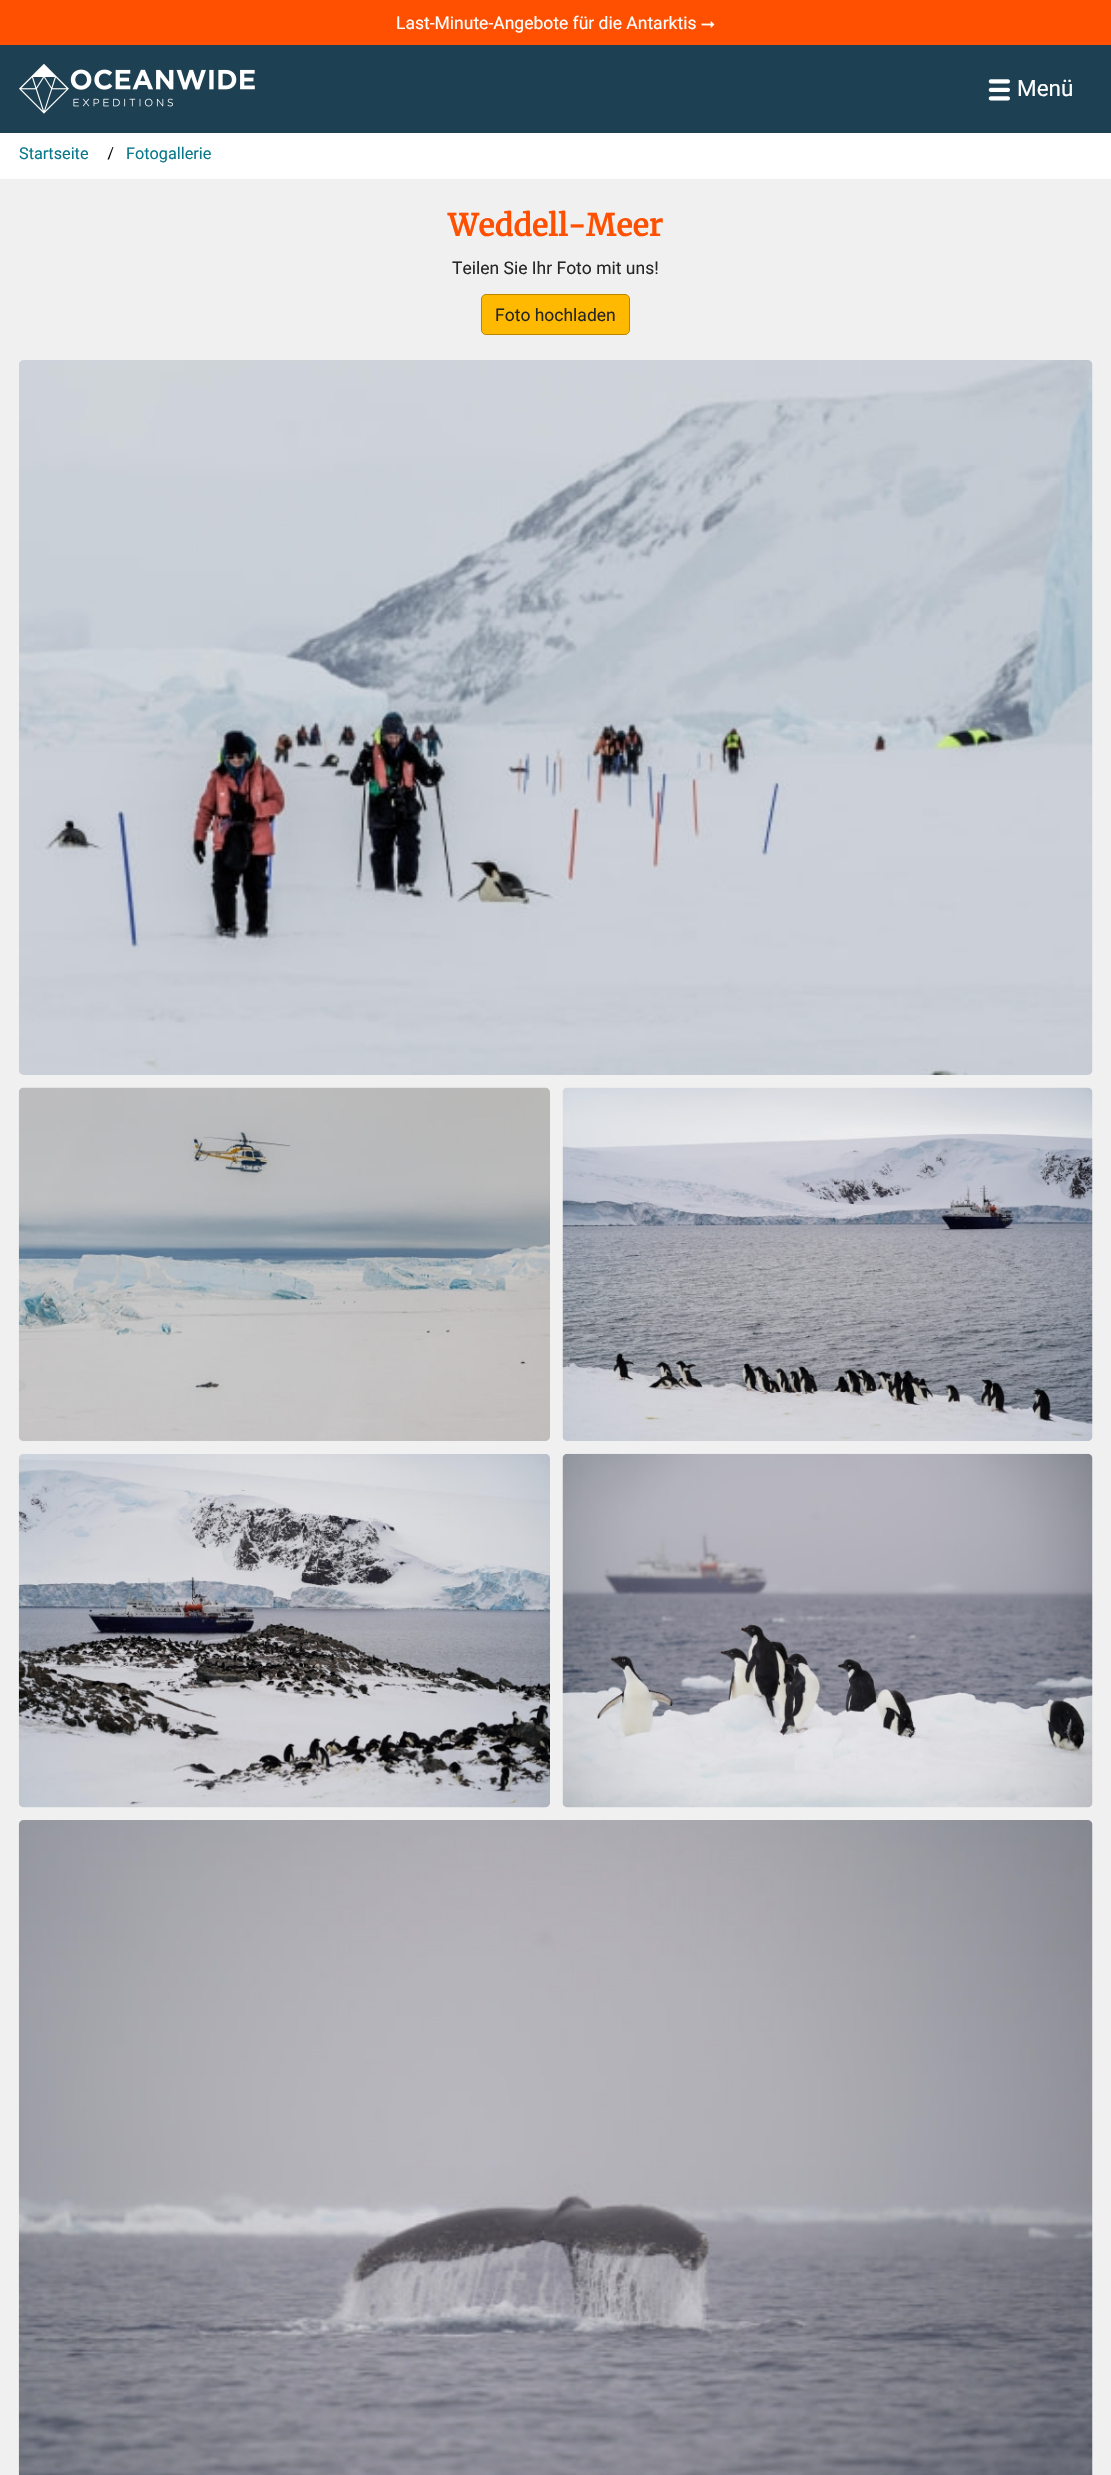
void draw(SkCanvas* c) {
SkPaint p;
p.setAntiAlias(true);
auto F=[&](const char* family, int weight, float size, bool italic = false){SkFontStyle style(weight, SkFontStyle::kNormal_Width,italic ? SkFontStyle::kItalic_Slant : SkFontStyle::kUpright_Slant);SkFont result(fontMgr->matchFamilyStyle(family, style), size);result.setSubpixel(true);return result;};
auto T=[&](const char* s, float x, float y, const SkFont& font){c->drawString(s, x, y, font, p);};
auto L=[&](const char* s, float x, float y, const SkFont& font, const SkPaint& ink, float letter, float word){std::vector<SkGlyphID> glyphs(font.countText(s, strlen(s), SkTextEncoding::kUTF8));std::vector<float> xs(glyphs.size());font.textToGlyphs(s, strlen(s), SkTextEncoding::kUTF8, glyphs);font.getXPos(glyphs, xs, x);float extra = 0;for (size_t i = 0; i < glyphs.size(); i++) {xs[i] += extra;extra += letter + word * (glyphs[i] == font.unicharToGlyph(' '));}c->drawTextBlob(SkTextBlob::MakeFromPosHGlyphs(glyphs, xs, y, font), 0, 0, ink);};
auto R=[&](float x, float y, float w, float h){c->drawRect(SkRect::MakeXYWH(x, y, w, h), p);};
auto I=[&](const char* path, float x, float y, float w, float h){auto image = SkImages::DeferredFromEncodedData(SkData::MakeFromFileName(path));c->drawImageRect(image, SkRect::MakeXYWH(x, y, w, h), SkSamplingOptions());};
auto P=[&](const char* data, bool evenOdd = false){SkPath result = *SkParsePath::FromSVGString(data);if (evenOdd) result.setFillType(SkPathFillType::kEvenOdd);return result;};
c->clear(0xffffffff);
p.setColor(0xffff4f00);
R(0,0,1111,45);
auto f1 = F("Roboto",400,17.5);
p.setColor(0xffffffff);
T("Last-Minute-Angebote für die Antarktis",396,29,f1);
auto f2 = F("FreeSans",400,17.5);
T("⭢",701,29,f2);
p.setColor(0xff1e4053);
R(0,45,1111,88);
I("1.png",19,64,236,50);
I("2.png",988,79,22,22);
auto f3 = F("Roboto",400,22.5);
p.setColor(0xffffffff);
T("Menü",1017,96,f3);
auto f4 = F("Roboto",400,16.25);
p.setColor(0xff08788b);
T("Startseite",19,159,f4);
p.setColor(0xff000000);
c->drawPath(P("M113.5 147l-4.5 12.5h-1.5l5-12.5z"),p);
p.setColor(0xff08788b);
T("Fotogallerie",126,159,f4);
p.setColor(0xfff0f0f0);
R(0,179,1111,2296);
auto f5 = F("Merriweather",700,30);
p.setColor(0xffff4f00);
L("Weddell-Meer",448,236,f5,p,.6,0);
p.setColor(0xff262626);
T("Teilen Sie Ihr Foto mit uns!",452,274,f1);
p.setColor(0xffffb900);
c->drawRoundRect(SkRect::MakeXYWH(481.5,294.5,148,40),4.5,4.5,p);
p.setStroke(true);
p.setStrokeWidth(1);
p.setColor(0xffb98700);
c->drawRoundRect(SkRect::MakeXYWH(481.5,294.5,148,40),4.5,4.5,p);
p.setStroke(false);
p.setColor(0xff262626);
T("Foto hochladen",495,321,f1);
I("3.png",19,360,1074,715);
I("4.png",18,1087,532,354);
I("5.png",562,1087,531,354);
I("6.png",18,1454,532,354);
I("7.png",562,1453,531,355);
I("8.png",18,1820,1075,655);
}
